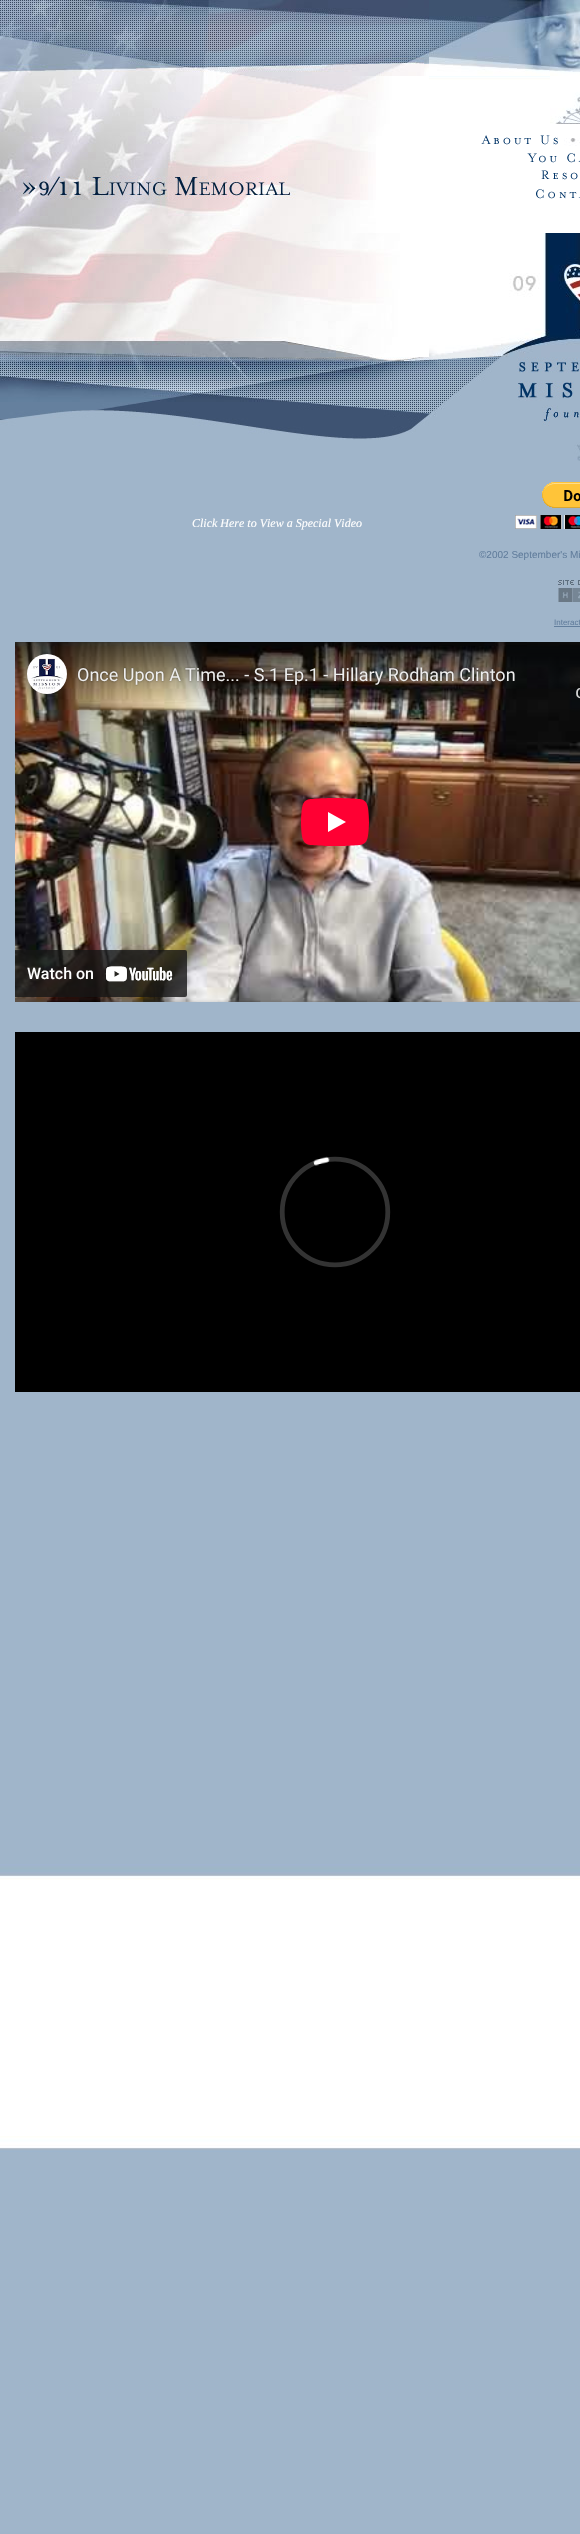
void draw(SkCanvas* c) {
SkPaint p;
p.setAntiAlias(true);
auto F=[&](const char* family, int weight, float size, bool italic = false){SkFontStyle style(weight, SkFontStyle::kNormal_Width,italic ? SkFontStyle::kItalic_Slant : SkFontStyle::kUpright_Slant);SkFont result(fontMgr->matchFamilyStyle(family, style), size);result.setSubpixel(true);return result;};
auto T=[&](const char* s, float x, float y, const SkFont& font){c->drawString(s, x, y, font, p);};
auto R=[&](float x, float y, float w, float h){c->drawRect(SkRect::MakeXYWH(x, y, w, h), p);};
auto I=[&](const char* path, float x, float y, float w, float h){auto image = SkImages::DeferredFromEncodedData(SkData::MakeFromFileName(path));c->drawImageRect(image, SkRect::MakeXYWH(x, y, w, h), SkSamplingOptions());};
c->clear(0xffffffff);
I("1.png",0,76,580,2458);
I("2.png",0,0,429,76);
I("3.png",0,76,429,60);
I("4.png",0,136,376,97);
I("5.png",0,233,429,124);
I("6.png",0,357,429,45);
I("7.png",0,402,429,38);
auto f1 = F("Liberation Serif",400,12,true);
p.setColor(0xffffffff);
T("Click Here to View a Special Video",192,527,f1);
I("8.png",429,0,121,76);
I("9.png",550,0,30,76);
I("10.png",550,76,30,48);
I("11.png",481,135,77,10);
I("12.png",564,138,16,8);
I("13.png",527,153,53,10);
I("14.png",541,170,37,10);
I("15.png",536,189,44,10);
I("16.png",429,233,121,124);
I("17.png",550,233,30,119);
I("18.png",429,357,121,44);
I("19.png",550,357,30,42);
I("20.png",429,402,16,15);
I("21.png",542,405,38,56);
I("22.png",515,482,65,47);
auto f2 = F("Liberation Sans",400,10);
p.setColor(0xff627e9d);
T("©2002 September's Mi",479,558,f2);
I("23.png",558,580,22,22);
auto f3 = F("Liberation Sans",400,8);
T("Interact",554,625,f3);
R(554,626,26,1);
I("24.png",15,642,565,360);
I("25.png",15,1032,565,360);
}
